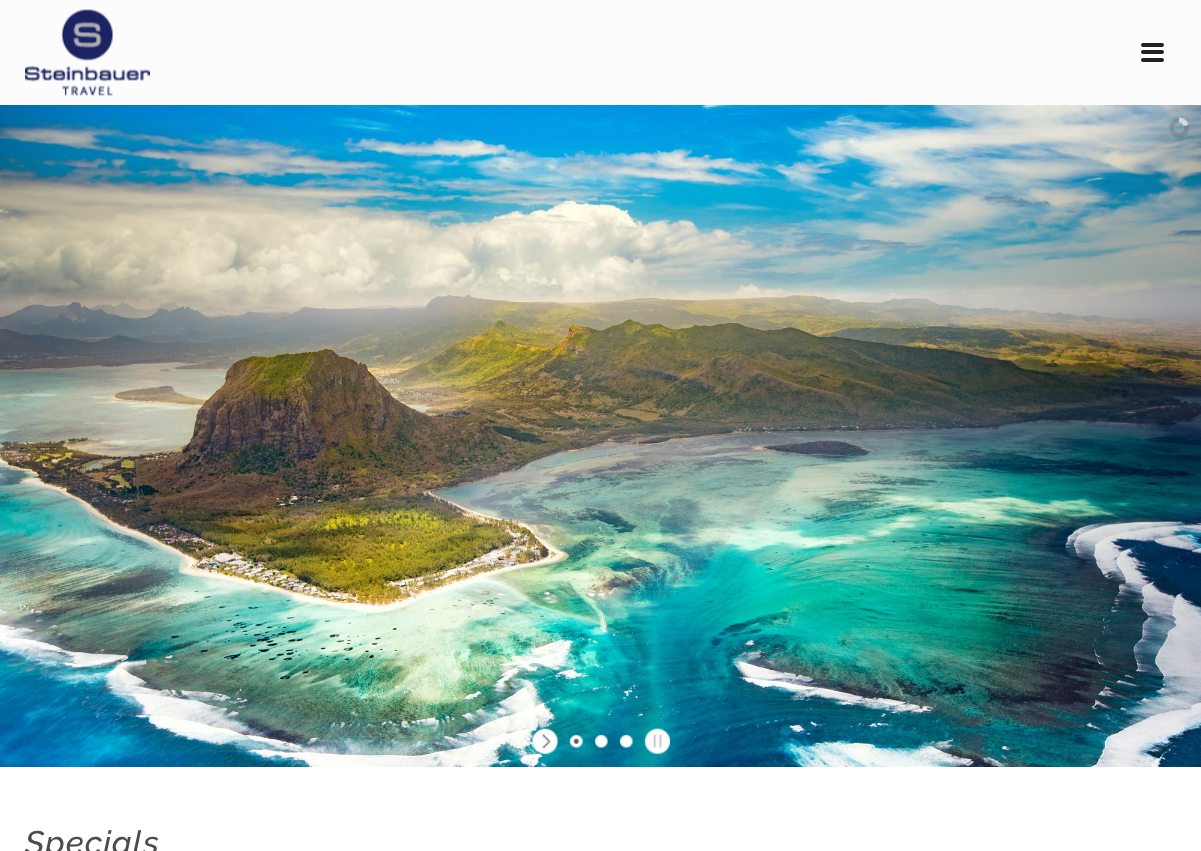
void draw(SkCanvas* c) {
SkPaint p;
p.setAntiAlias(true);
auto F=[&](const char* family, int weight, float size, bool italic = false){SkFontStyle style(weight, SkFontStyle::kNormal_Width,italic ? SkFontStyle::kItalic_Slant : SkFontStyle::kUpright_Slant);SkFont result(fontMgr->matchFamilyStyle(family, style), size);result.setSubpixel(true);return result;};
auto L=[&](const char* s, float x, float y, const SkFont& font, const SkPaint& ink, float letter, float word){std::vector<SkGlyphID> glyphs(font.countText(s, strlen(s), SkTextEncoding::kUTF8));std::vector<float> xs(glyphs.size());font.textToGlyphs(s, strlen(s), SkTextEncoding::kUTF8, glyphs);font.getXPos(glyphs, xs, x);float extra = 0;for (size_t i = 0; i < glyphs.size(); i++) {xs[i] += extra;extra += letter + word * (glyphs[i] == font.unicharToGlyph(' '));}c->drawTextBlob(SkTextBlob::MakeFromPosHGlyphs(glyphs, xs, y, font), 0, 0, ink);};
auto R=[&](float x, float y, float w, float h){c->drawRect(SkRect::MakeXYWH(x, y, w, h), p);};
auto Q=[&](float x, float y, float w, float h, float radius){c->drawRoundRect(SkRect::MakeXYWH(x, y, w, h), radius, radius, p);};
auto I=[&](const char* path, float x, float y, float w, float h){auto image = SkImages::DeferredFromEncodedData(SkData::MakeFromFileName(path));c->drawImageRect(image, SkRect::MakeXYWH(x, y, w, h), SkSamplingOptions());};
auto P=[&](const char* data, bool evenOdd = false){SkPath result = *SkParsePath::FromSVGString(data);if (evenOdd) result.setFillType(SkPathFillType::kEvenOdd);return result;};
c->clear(0xffffffff);
p.setColor(0xfffcfcfc);
R(0,0,1201,105);
I("1.png",25,9,125,87);
p.setColor(0xff212121);
Q(1141,43,23,4,2);
Q(1141,50,23,4,2);
Q(1141,58,23,4,2);
I("2.png",0,105,1201,662);
p.setStroke(true);
p.setStrokeWidth(5);
p.setColor(0x21000000);
c->drawCircle(1179,128,7.5,p);
c->save();
c->clipRect(SkRect::MakeXYWH(1179,118,10,20));
c->clipPath(P("M1186 115.5l2.5 9.5l-19.5 5l-2.5-10z"),true);
p.setColor(0xa6ffffff);
c->drawPath(P("M1186 126c2.5 9.5-12.5 13-14.5 3c-2.5-9.5 12.5-13 14.5-3z"),p);
c->restore();
I("3.png",532,728,26,26);
I("4.png",569,734,14,14);
I("5.png",594,734,14,14);
I("6.png",619,734,14,14);
I("7.png",644,728,26,26);
auto f1 = F("Raleway",500,32.5,true);
p.setStroke(false);
p.setColor(0xff4c4c4c);
L("Specials",25,854,f1,p,1.25,0);
}
